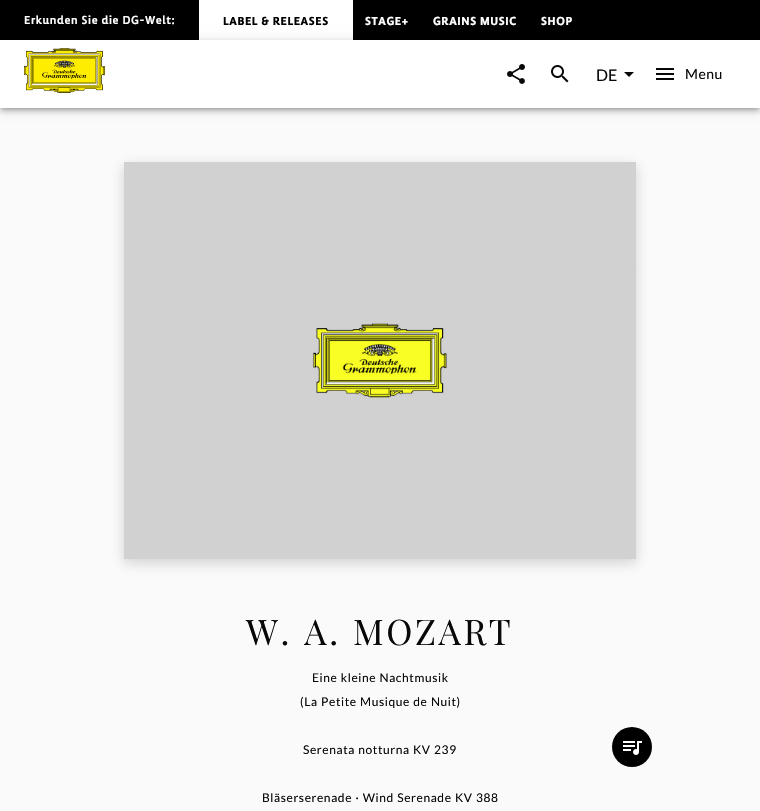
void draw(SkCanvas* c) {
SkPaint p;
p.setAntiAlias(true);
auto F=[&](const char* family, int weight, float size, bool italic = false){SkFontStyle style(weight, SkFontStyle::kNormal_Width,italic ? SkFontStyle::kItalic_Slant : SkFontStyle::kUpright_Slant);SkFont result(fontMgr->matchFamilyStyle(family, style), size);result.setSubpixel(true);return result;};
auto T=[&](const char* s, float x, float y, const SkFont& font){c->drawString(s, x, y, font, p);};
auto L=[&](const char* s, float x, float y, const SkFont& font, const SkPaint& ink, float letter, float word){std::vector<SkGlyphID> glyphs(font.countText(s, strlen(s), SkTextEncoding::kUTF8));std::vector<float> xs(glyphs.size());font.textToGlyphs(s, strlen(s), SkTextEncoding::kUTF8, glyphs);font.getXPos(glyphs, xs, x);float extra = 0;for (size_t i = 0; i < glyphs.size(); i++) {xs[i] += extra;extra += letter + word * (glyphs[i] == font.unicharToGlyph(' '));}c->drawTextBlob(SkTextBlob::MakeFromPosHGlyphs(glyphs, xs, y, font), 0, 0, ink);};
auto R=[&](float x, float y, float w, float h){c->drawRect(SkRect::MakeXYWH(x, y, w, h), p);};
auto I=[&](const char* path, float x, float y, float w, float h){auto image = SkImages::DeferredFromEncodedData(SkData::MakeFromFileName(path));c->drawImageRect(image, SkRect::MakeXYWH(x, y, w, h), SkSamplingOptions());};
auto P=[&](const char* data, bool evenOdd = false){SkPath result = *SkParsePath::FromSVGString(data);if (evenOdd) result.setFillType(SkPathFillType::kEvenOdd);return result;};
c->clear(0xfffafafa);
p.setColor(0xff000000);
R(0,0,760,40);
auto f1 = F("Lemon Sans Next",500,12);
p.setColor(0xffffffff);
L("Erkunden Sie die DG-Welt:",24,24,f1,p,.6,0);
R(199,0,154,40);
auto f2 = F("Lemon Sans Next",700,12);
p.setColor(0xff000000);
L("LABEL & RELEASES",223,25,f2,p,.6,0);
p.setColor(0xffffffff);
L("STAGE+",365,25,f2,p,.6,0);
L("GRAINS MUSIC",433,25,f2,p,.6,0);
L("SHOP",541,25,f2,p,.6,0);
p.setColor(0x1f000000);
p.setMaskFilter(SkMaskFilter::MakeBlur(kNormal_SkBlurStyle, 5));
c->drawRect(SkRect::MakeXYWH(0,41,760,68),p);
p.setMaskFilter(nullptr);
p.setColor(0x24000000);
p.setMaskFilter(SkMaskFilter::MakeBlur(kNormal_SkBlurStyle, 2.5));
c->drawRect(SkRect::MakeXYWH(0,44,760,68),p);
p.setMaskFilter(nullptr);
p.setColor(0x33000000);
p.setMaskFilter(SkMaskFilter::MakeBlur(kNormal_SkBlurStyle, 2));
c->drawRect(SkRect::MakeXYWH(1,43,758,66),p);
p.setMaskFilter(nullptr);
p.setColor(0xffffffff);
R(0,40,760,68);
I("1.png",24,48,81,45);
I("2.png",507,64,18,20);
I("3.png",551,65,18,18);
auto f3 = F("Lato",400,16);
p.setColor(0xff080808);
T("DE",596,81,f3);
c->drawPath(P("M624 72l5 5l5-5z"),p);
I("4.png",656,68,18,12);
auto f4 = F("Lato",400,14);
L("Menu",685,79,f4,p,.5,0);
p.setColor(0x3b434343);
p.setMaskFilter(SkMaskFilter::MakeBlur(kNormal_SkBlurStyle, 6));
c->drawRect(SkRect::MakeXYWH(124,166,512,397),p);
p.setMaskFilter(nullptr);
I("5.png",124,162,512,397);
auto f5 = F("Playfair Display",400,35.25);
p.setColor(0xff080808);
L("W. A. MOZART",246,645,f5,p,2.6,1);
auto f6 = F("Lato",400,12);
L("Eine kleine Nachtmusik",312,682,f6,p,.6,.5);
L("(La Petite Musique de Nuit)",300,706,f6,p,.6,.5);
L("Serenata notturna KV 239",303,754,f6,p,.6,.5);
L("Bläserserenade · Wind Serenade KV 388",262,802,f6,p,.6,.5);
p.setColor(0xff000000);
c->drawCircle(632,747,20,p);
I("6.png",623,741,19,14);
}
